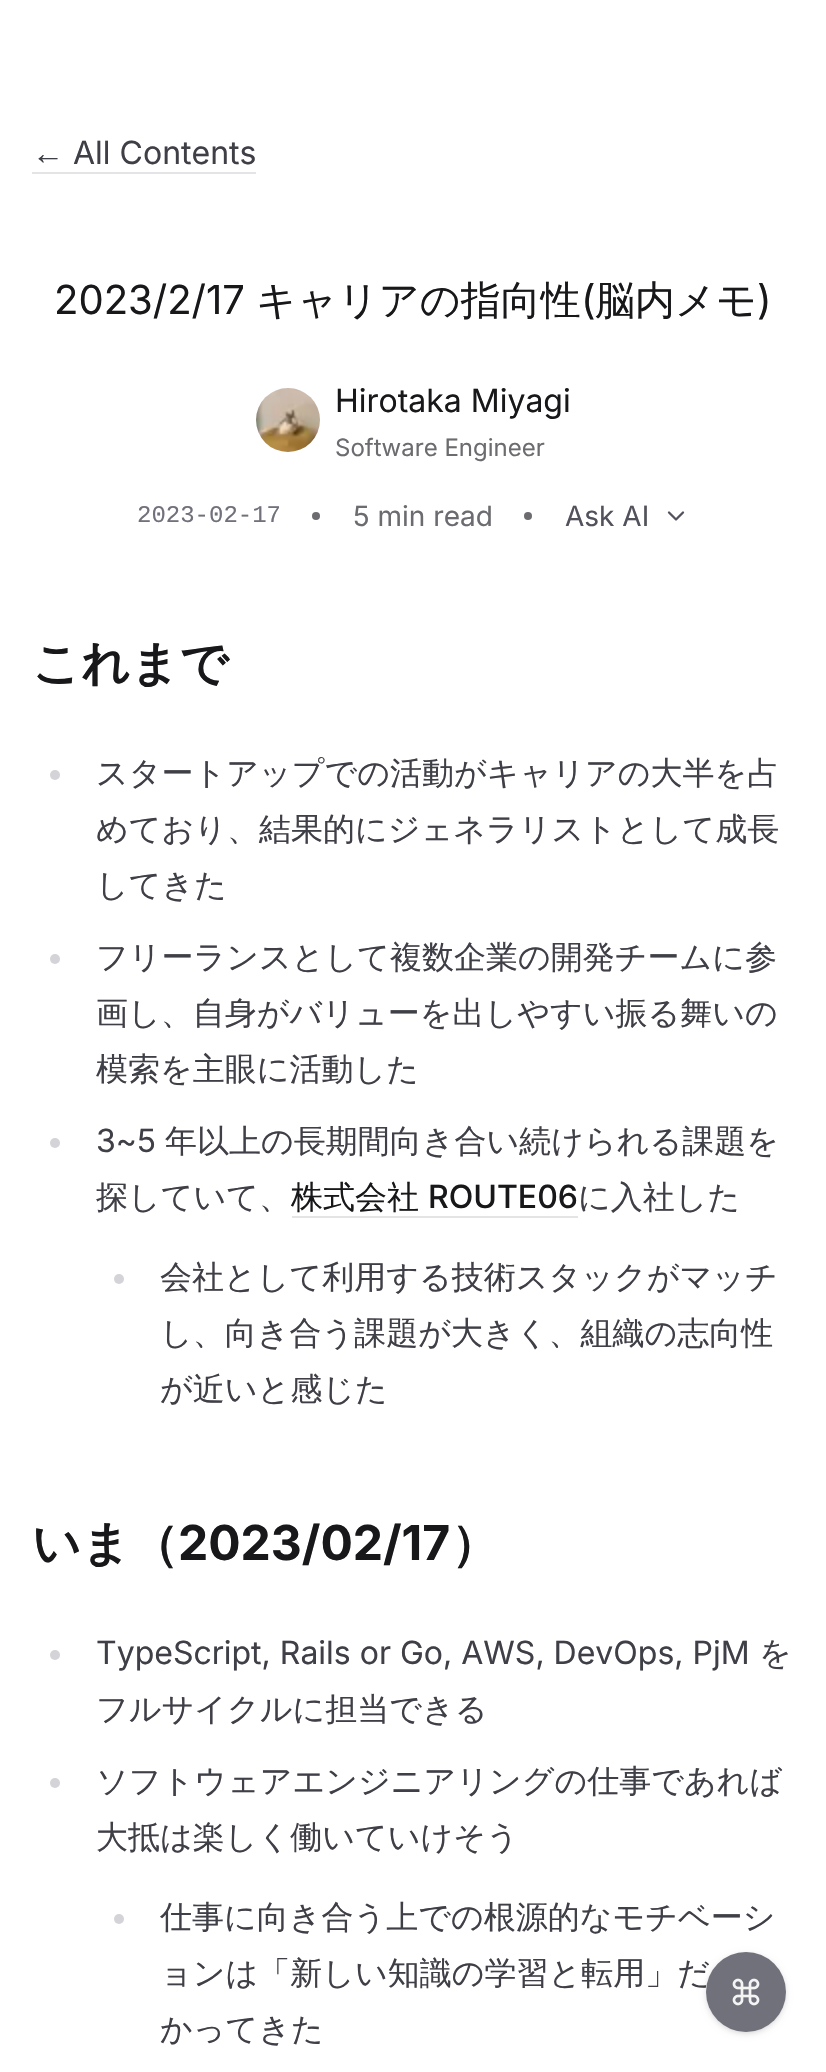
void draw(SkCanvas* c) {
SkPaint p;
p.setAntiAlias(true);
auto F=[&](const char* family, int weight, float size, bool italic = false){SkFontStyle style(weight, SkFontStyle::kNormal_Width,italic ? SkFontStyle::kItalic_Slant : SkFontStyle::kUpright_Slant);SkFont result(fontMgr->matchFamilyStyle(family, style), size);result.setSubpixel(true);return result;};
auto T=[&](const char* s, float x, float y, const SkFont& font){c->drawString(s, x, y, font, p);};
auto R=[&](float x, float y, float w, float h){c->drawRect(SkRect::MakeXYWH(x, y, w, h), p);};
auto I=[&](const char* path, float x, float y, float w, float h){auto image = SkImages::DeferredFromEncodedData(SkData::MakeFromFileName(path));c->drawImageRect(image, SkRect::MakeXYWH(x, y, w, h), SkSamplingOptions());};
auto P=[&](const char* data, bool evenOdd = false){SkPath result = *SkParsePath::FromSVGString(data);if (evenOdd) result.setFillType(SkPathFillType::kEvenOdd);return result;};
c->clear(0xffffffff);
auto f1 = F("Liberation Serif",400,32);
p.setColor(0xff3f3f47);
T("←",32,164,f1);
p.setColor(0xffe4e4e7);
R(32,172,224,2);
auto f2 = F("Inter",400,32);
p.setColor(0xff3f3f47);
T("All Contents",73,164,f2);
auto f3 = F("Inter",400,40);
p.setColor(0xff18181b);
T("2023/2/17",54,314,f3);
auto f4 = F("WenQuanYi Zen Hei",500,40);
T("キャリアの指向性",256,314,f4);
T("(",581,314,f3);
T("脳内メモ",595,314,f4);
T(")",757,314,f3);
I("1.png",256,388,64,64);
T("Hirotaka Miyagi",335,412,f2);
auto f5 = F("Inter",400,24);
p.setColor(0xff6c6c70);
T("Software Engineer",335,456,f5);
auto f6 = F("Liberation Mono",400,24);
p.setColor(0xff71717b);
T("2023-02-17",137,522,f6);
p.setColor(0xff6c6c70);
c->drawCircle(316,516,4,p);
auto f7 = F("Inter",400,28);
T("5 min read",353,526,f7);
c->drawCircle(528,516,4,p);
p.setColor(0xff52525c);
T("Ask AI",565,526,f7);
p.setStroke(true);
p.setStrokeWidth(2.3);
p.setStrokeCap(SkPaint::kRound_Cap);
p.setStrokeJoin(SkPaint::kRound_Join);
c->drawPath(P("M669 512.5l7 7l7-7"),p);
auto f8 = F("WenQuanYi Zen Hei",700,48);
p.setStroke(false);
p.setColor(0xff18181b);
T("これまで",32,680,f8);
p.setColor(0xffd4d4d8);
c->drawCircle(55,775,5,p);
auto f9 = F("WenQuanYi Zen Hei",500,32);
p.setColor(0xff3f3f47);
T("スタートアップでの活動がキャリアの大半を占",96,784,f9);
T("めており、結果的にジェネラリストとして成長",96,840,f9);
T("してきた",96,896,f9);
p.setColor(0xffd4d4d8);
c->drawCircle(55,959,5,p);
p.setColor(0xff3f3f47);
T("フリーランスとして複数企業の開発チームに参",96,968,f9);
T("画し、自身がバリューを出しやすい振る舞いの",96,1024,f9);
T("模索を主眼に活動した",96,1080,f9);
p.setColor(0xffd4d4d8);
c->drawCircle(55,1143,5,p);
p.setColor(0xff3f3f47);
T("3~5",96,1152,f2);
T("年以上の長期間向き合い続けられる課題を",165,1152,f9);
T("探していて、",96,1208,f9);
p.setColor(0xff18181b);
T("株式会社",291,1208,f9);
p.setColor(0xffe4e4e7);
R(292,1216,286,2);
auto f10 = F("Inter",500,32);
p.setColor(0xff18181b);
T("ROUTE06",428,1208,f10);
p.setColor(0xff3f3f47);
T("に入社した",578,1208,f9);
p.setColor(0xffd4d4d8);
c->drawCircle(119,1279,5,p);
p.setColor(0xff3f3f47);
T("会社として利用する技術スタックがマッチ",160,1288,f9);
T("し、向き合う課題が大きく、組織の志向性",160,1344,f9);
T("が近いと感じた",160,1400,f9);
p.setColor(0xff18181b);
T("いま（",32,1560,f8);
auto f11 = F("Inter",700,48);
T("2023/02/17",178,1560,f11);
T("）",451,1560,f8);
p.setColor(0xffd4d4d8);
c->drawCircle(55,1655,5,p);
p.setColor(0xff3f3f47);
T("TypeScript, Rails or Go, AWS, DevOps, PjM",96,1664,f2);
T("を",759,1664,f9);
T("フルサイクルに担当できる",96,1720,f9);
p.setColor(0xffd4d4d8);
c->drawCircle(55,1783,5,p);
p.setColor(0xff3f3f47);
T("ソフトウェアエンジニアリングの仕事であれば",96,1792,f9);
T("大抵は楽しく働いていけそう",96,1848,f9);
p.setColor(0xffd4d4d8);
c->drawCircle(119,1919,5,p);
p.setColor(0xff3f3f47);
T("仕事に向き合う上での根源的なモチベーシ",160,1928,f9);
T("ョンは「新しい知識の学習と転用」だ",160,1984,f9);
T("かってきた",160,2040,f9);
p.setColor(0x1a000000);
p.setMaskFilter(SkMaskFilter::MakeBlur(kNormal_SkBlurStyle, 2));
c->drawRoundRect(SkRect::MakeXYWH(708,1956,76,76),38,38,p);
p.setMaskFilter(nullptr);
p.setMaskFilter(SkMaskFilter::MakeBlur(kNormal_SkBlurStyle, 3));
c->drawRoundRect(SkRect::MakeXYWH(706,1954,80,80),40,40,p);
p.setMaskFilter(nullptr);
p.setColor(0xff71717b);
c->drawCircle(746,1992,40,p);
I("2.png",732,1978,28,28);
}
